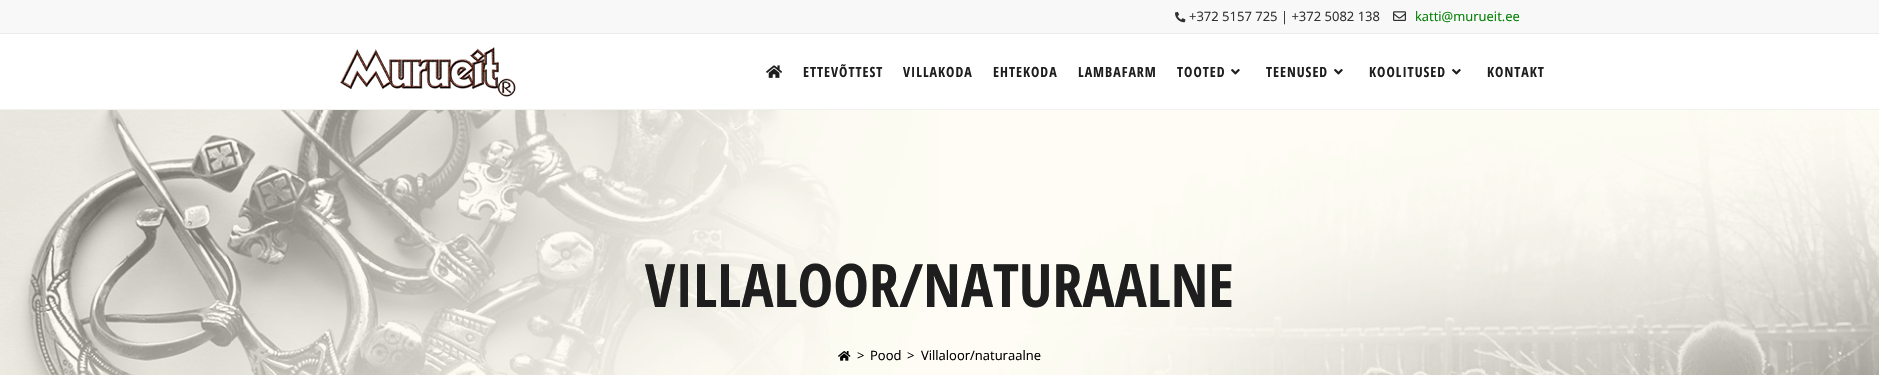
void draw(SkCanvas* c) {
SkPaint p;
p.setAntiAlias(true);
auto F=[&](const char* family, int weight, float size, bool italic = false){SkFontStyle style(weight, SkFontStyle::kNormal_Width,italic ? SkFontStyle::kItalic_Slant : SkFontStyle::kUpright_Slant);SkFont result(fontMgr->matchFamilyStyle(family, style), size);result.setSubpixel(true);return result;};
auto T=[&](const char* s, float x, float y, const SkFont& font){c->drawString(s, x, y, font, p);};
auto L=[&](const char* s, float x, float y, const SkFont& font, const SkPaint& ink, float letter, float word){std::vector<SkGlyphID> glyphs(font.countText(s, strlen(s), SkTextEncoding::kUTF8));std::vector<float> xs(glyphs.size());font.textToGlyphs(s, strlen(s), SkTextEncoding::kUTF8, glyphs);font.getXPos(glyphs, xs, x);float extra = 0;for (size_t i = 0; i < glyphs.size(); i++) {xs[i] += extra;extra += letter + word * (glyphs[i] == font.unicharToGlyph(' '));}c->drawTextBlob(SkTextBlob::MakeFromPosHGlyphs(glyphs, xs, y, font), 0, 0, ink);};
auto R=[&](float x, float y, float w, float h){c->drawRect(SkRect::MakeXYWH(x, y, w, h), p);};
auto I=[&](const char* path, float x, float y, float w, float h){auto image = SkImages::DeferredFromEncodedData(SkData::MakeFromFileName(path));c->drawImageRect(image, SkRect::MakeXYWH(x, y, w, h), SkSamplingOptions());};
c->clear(0xffffffff);
p.setColor(0xfff8f8f8);
R(0,0,1879,33);
p.setColor(0xffebebeb);
R(0,33,1879,1);
I("1.png",1175,11,11,12);
auto f1 = F("Open Sans",400,13);
p.setColor(0xff303030);
T("+372 5157 725 | +372 5082 138",1189,21,f1);
I("2.png",1393,11,13,10);
p.setColor(0xff008000);
T("katti@murueit.ee",1415,21,f1);
p.setColor(0xfff1f1f1);
R(0,109,1879,1);
I("3.png",340,47,176,50);
I("4.png",766,65,16,13);
auto f2 = F("Open Sans Condensed",700,14);
p.setColor(0xff1e1e1e);
L("ETTEVÕTTEST",803,77,f2,p,1,0);
L("VILLAKODA",903,77,f2,p,1,0);
L("EHTEKODA",993,77,f2,p,1,0);
L("LAMBAFARM",1078,77,f2,p,1,0);
L("TOOTED",1177,77,f2,p,1,0);
I("5.png",1231,69,9,6);
L("TEENUSED",1266,77,f2,p,1,0);
I("5.png",1334,69,9,6);
L("KOOLITUSED",1369,77,f2,p,1,0);
I("5.png",1452,69,9,6);
L("KONTAKT",1487,77,f2,p,1,0);
I("6.png",0,110,1879,265);
auto f3 = F("Open Sans Condensed",700,60);
T("VILLALOOR/NATURAALNE",645,307,f3);
I("7.png",838,351,13,10);
p.setColor(0xff000000);
T(">",857,360,f1);
T("Pood",870,360,f1);
T(">",907,360,f1);
T("Villaloor/naturaalne",921,360,f1);
}
